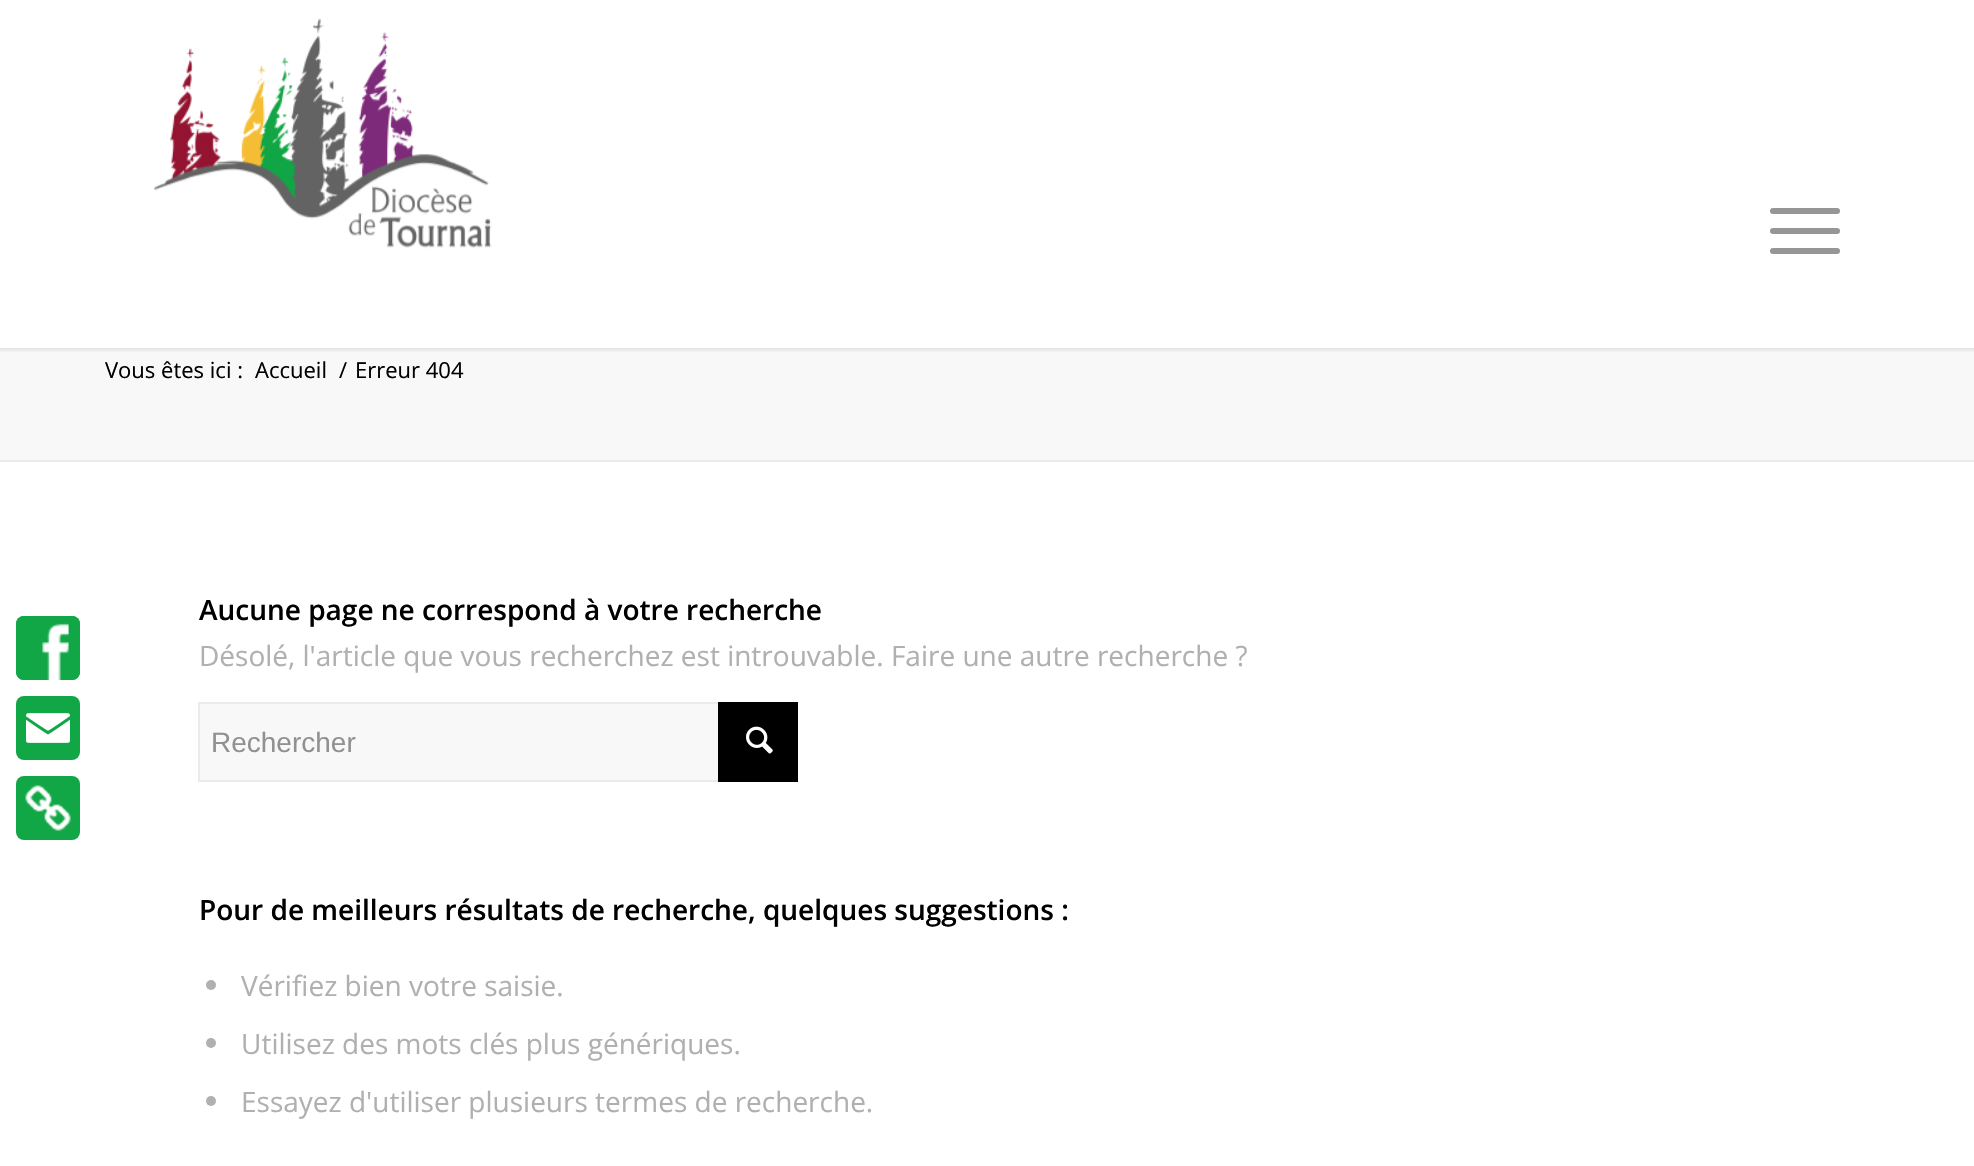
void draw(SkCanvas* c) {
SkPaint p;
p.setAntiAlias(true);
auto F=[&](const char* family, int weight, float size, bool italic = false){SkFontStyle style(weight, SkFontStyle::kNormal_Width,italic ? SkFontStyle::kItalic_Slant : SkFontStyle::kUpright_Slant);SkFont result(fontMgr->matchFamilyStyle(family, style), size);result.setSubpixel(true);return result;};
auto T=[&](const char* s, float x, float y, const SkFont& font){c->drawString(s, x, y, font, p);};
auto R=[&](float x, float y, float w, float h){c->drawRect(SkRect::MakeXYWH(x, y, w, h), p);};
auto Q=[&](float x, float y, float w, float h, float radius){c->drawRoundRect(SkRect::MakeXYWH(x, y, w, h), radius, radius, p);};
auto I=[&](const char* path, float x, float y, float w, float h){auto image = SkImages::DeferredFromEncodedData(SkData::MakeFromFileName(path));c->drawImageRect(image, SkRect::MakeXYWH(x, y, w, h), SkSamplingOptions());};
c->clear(0xffffffff);
p.setColor(0xff11a646);
Q(16,616,64,64,8);
I("1.png",16,616,64,64);
Q(16,696,64,64,8);
I("2.png",26,713,44,30);
Q(16,776,64,64,8);
I("3.png",25,785,46,46);
p.setColor(0xfff8f8f8);
R(0,348,1974,112);
c->save();
c->clipRect(SkRect::MakeXYWH(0,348,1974,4));
p.setColor(0x1a000000);
p.setMaskFilter(SkMaskFilter::MakeBlur(kNormal_SkBlurStyle, 2));
c->drawRect(SkRect::MakeXYWH(-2,-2,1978,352),p);
p.setMaskFilter(nullptr);
c->restore();
I("4.png",154,18,338,231);
p.setColor(0xff969696);
Q(1770,228,70,6,3);
Q(1770,208,70,6,3);
Q(1770,248,70,6,3);
auto f1 = F("Open Sans",400,22);
p.setColor(0xff000000);
T("Vous êtes ici :",105,378,f1);
T("Accueil",255,378,f1);
T("/",339,378,f1);
T("Erreur 404",355,378,f1);
p.setColor(0xffebebeb);
R(0,460,1974,2);
auto f2 = F("Open Sans",600,28);
p.setColor(0xff000000);
T("Aucune page ne correspond à votre recherche",199,620,f2);
auto f3 = F("Open Sans",400,28);
p.setColor(0xffb0b0b0);
T("Désolé, l'article que vous recherchez est introuvable. Faire une autre recherche ?",199,666,f3);
p.setColor(0xfff8f8f8);
R(200,704,518,76);
p.setStroke(true);
p.setStrokeWidth(2);
p.setColor(0xffebebeb);
c->drawRect(SkRect::MakeXYWH(199,703,598,78),p);
auto f4 = F("Liberation Sans",400,28);
p.setStroke(false);
p.setColor(0xff919191);
T("Rechercher",211,752,f4);
p.setColor(0xff000000);
R(718,702,80,80);
I("5.png",746,726,27,28);
T("Pour de meilleurs résultats de recherche, quelques suggestions :",199,920,f2);
p.setColor(0xffb0b0b0);
c->drawCircle(211,985,5,p);
T("Vérifiez bien votre saisie.",241,996,f3);
c->drawCircle(211,1043,5,p);
T("Utilisez des mots clés plus génériques.",241,1054,f3);
c->drawCircle(211,1101,5,p);
T("Essayez d'utiliser plusieurs termes de recherche.",241,1112,f3);
}
